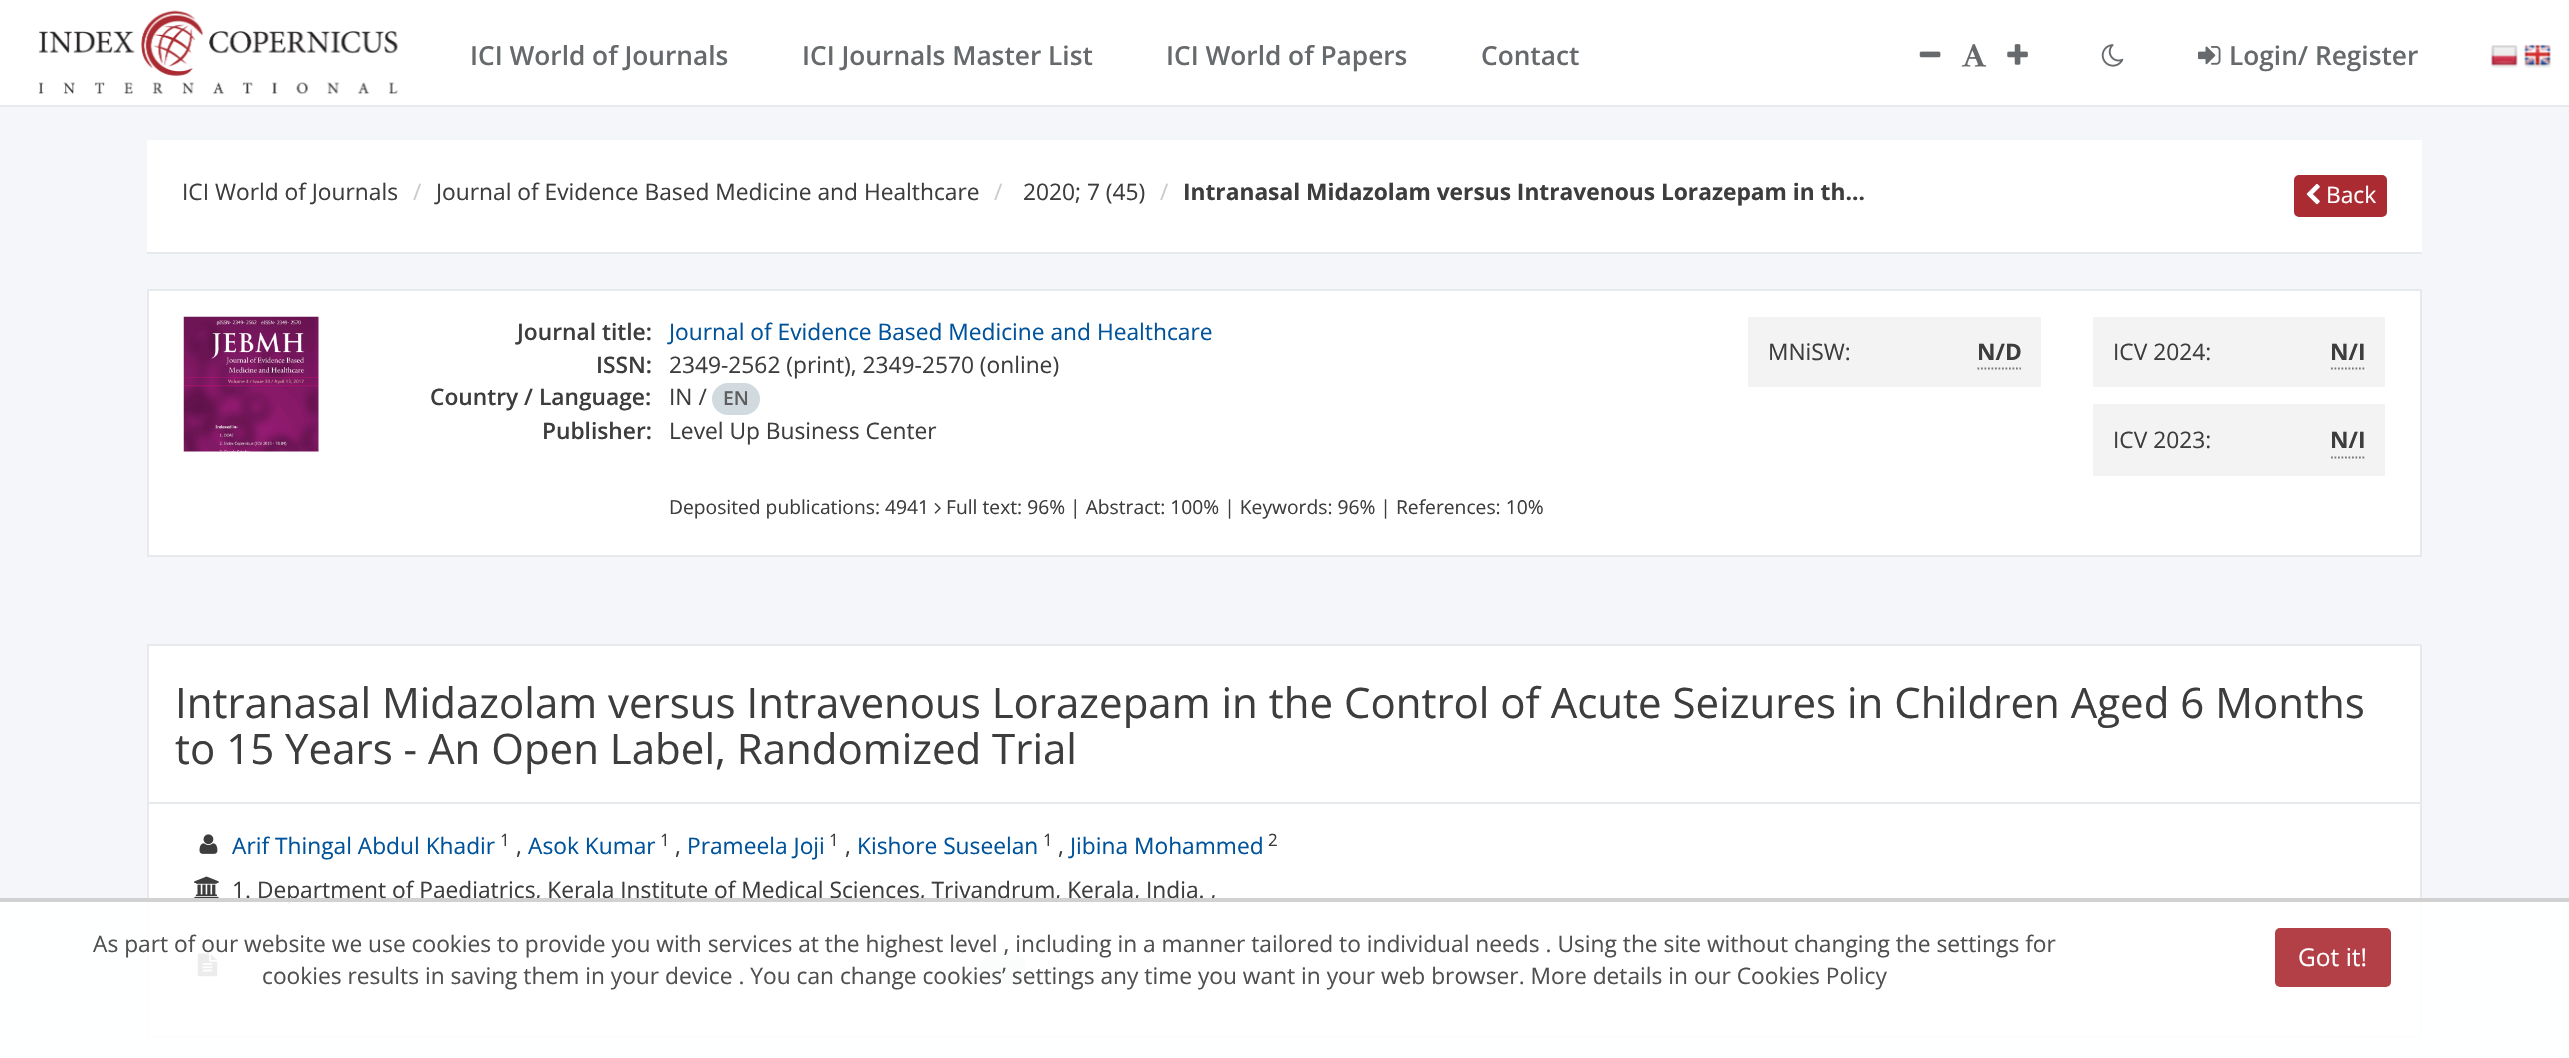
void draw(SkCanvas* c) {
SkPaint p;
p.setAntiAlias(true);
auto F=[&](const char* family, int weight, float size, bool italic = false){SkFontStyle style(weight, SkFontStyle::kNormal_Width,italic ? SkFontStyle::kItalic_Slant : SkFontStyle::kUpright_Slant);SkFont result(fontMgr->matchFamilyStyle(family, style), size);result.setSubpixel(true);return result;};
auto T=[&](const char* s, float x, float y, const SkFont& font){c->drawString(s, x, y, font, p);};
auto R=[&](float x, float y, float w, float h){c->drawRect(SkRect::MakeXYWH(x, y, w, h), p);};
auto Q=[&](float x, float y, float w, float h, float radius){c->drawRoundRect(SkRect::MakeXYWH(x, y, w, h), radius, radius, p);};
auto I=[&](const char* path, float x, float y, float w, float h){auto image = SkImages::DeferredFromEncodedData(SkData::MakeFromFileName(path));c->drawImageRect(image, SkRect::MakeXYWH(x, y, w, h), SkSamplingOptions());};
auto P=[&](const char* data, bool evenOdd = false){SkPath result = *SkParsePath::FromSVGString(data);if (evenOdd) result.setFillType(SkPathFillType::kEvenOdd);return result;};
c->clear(0xfff4f6fa);
p.setColor(0xffffffff);
R(0,0,2569,105);
p.setColor(0xffe7eaec);
R(0,105,2569,2);
I("1.png",38,10,360,84);
auto f1 = F("Open Sans",600,26.25);
p.setColor(0xff676a6c);
T("ICI World of Journals",470,65,f1);
T("ICI Journals Master List",802,65,f1);
T("ICI World of Papers",1166,65,f1);
T("Contact",1481,65,f1);
I("2.png",1919,51,22,7);
I("3.png",1961,44,26,23);
I("4.png",2007,44,21,21);
I("5.png",2101,44,23,23);
I("6.png",2198,46,23,19);
T("Login/ Register",2229,65,f1);
I("7.png",2490,45,28,23);
I("8.png",2524,44,27,24);
p.setColor(0xffffffff);
R(147,140,2275,112);
p.setColor(0xffe7eaec);
R(147,252,2275,2);
auto f2 = F("Open Sans",400,22.75);
p.setColor(0xff3d3d3d);
T("ICI World of Journals",182,200,f2);
p.setColor(0xffcccccc);
T("/",413,200,f2);
p.setColor(0xff3d3d3d);
T("Journal of Evidence Based Medicine and Healthcare",436,200,f2);
p.setColor(0xffcccccc);
T("/",994,200,f2);
p.setColor(0xff3d3d3d);
T("2020; 7 (45)",1023,200,f2);
p.setColor(0xffcccccc);
T("/",1160,200,f2);
auto f3 = F("Open Sans",700,22.75);
p.setColor(0xff3d3d3d);
T("Intranasal Midazolam versus Intravenous Lorazepam in th…",1183,200,f3);
p.setColor(0xffaa2b31);
c->drawRoundRect(SkRect::MakeXYWH(2295,176,91,40),4,4,p);
p.setStroke(true);
p.setStrokeWidth(2);
c->drawRoundRect(SkRect::MakeXYWH(2295,176,91,40),4,4,p);
I("9.png",2306,183,14,22);
p.setStroke(false);
p.setColor(0xffffffff);
T("Back",2326,203,f2);
c->drawRect(SkRect::MakeXYWH(148,290,2273,266),p);
p.setStroke(true);
p.setColor(0xffe7eaec);
c->drawRect(SkRect::MakeXYWH(148,290,2273,266),p);
I("10.png",183,316,136,136);
auto f4 = F("Open Sans",600,22.75);
p.setStroke(false);
p.setColor(0xff3d3d3d);
T("Journal title:",517,340,f4);
p.setColor(0xff00539b);
T("Journal of Evidence Based Medicine and Healthcare",669,340,f2);
p.setColor(0xff3d3d3d);
T("ISSN:",596,373,f4);
T("2349-2562 (print), 2349-2570 (online)",669,373,f2);
T("Country / Language:",430,405,f4);
T("IN /",669,405,f2);
p.setColor(0xffd1dade);
Q(712,383,48,32,16);
auto f5 = F("Open Sans",600,19.25);
p.setColor(0xff5e5e5e);
T("EN",723,405,f5);
p.setColor(0xff3d3d3d);
T("Publisher:",542,439,f4);
T("Level Up Business Center",669,439,f2);
p.setColor(0xfff3f3f4);
R(1748,317,293,70);
p.setColor(0xff3d3d3d);
T("MNiSW:",1768,360,f2);
p.setStroke(true);
p.setStrokeWidth(1.8);
p.setColor(0xff777777);
p.setPathEffect(SkDashPathEffect::Make({{1.75f,1.75f}}, 0));
c->drawPath(P("M1977.5 368.5h43.5"),p);
p.setPathEffect(nullptr);
p.setStroke(false);
p.setColor(0xff3d3d3d);
T("N/D",1977,360,f3);
p.setColor(0xfff3f3f4);
R(2093,317,292,70);
p.setColor(0xff3d3d3d);
T("ICV 2024:",2113,360,f2);
p.setStroke(true);
p.setColor(0xff777777);
p.setPathEffect(SkDashPathEffect::Make({{1.75f,1.75f}}, 0));
c->drawPath(P("M2331 368.5h35"),p);
p.setPathEffect(nullptr);
p.setStroke(false);
p.setColor(0xff3d3d3d);
T("N/I",2330,360,f3);
p.setColor(0xfff3f3f4);
R(2093,404,292,72);
p.setColor(0xff3d3d3d);
T("ICV 2023:",2113,448,f2);
p.setStroke(true);
p.setColor(0xff777777);
p.setPathEffect(SkDashPathEffect::Make({{1.75f,1.75f}}, 0));
c->drawPath(P("M2331 457.5h35"),p);
p.setPathEffect(nullptr);
p.setStroke(false);
p.setColor(0xff3d3d3d);
T("N/I",2330,448,f3);
auto f6 = F("Open Sans",400,19.25);
T("Deposited publications: 4941",669,514,f6);
I("11.png",934,503,7,11);
T("Full text: 96% | Abstract: 100% | Keywords: 96% | References: 10%",946,514,f6);
p.setColor(0xffffffff);
R(149,646,2271,156);
p.setColor(0xffe7eaec);
R(147,644,2275,2);
R(2420,644,2,158);
R(147,644,2,158);
auto f7 = F("Open Sans",400,42);
p.setColor(0xff3d3d3d);
T("Intranasal Midazolam versus Intravenous Lorazepam in the Control of Acute Seizures in Children Aged 6 Months",175,718,f7);
T("to 15 Years - An Open Label, Randomized Trial",175,764,f7);
p.setColor(0xffffffff);
c->drawRect(SkRect::MakeXYWH(148,803,2273,234),p);
p.setStroke(true);
p.setStrokeWidth(2);
p.setColor(0xffe7eaec);
c->drawRect(SkRect::MakeXYWH(148,803,2273,234),p);
I("12.png",199,834,19,20);
p.setStroke(false);
p.setColor(0xff00539b);
T("Arif Thingal Abdul Khadir",232,854,f2);
auto f8 = F("Open Sans",400,17);
p.setColor(0xff3d3d3d);
T("1",500,846,f8);
T(",",516,854,f2);
p.setColor(0xff00539b);
T("Asok Kumar",528,854,f2);
p.setColor(0xff3d3d3d);
T("1",660,846,f8);
T(",",675,854,f2);
p.setColor(0xff00539b);
T("Prameela Joji",687,854,f2);
p.setColor(0xff3d3d3d);
T("1",829,846,f8);
T(",",845,854,f2);
p.setColor(0xff00539b);
T("Kishore Suseelan",857,854,f2);
p.setColor(0xff3d3d3d);
T("1",1043,846,f8);
T(",",1058,854,f2);
p.setColor(0xff00539b);
T("Jibina Mohammed",1070,854,f2);
p.setColor(0xff3d3d3d);
T("2",1268,846,f8);
I("13.png",194,876,25,24);
T("1. Department of Paediatrics, Kerala Institute of Medical Sciences, Trivandrum, Kerala, India. ,",232,898,f2);
I("14.png",197,953,21,24);
p.setColor(0xffd1dade);
Q(980,952,46,32,16);
p.setColor(0xe6ffffff);
R(0,898,2569,160);
p.setColor(0xe6cccccc);
R(0,898,2569,4);
p.setColor(0xff505050);
T("As part of our website we use cookies to provide you with services at the highest level , including in a manner tailored to individual needs . Using the site without changing the settings for",93,952,f2);
T("cookies results in saving them in your device . You can change cookies’ settings any time you want in your web browser. More details in our Cookies Policy",262,984,f2);
p.setColor(0xffb34046);
Q(2275,928,116,59,5);
auto f9 = F("Open Sans",400,24.5);
p.setColor(0xffffffff);
T("Got it!",2298,966,f9);
}
